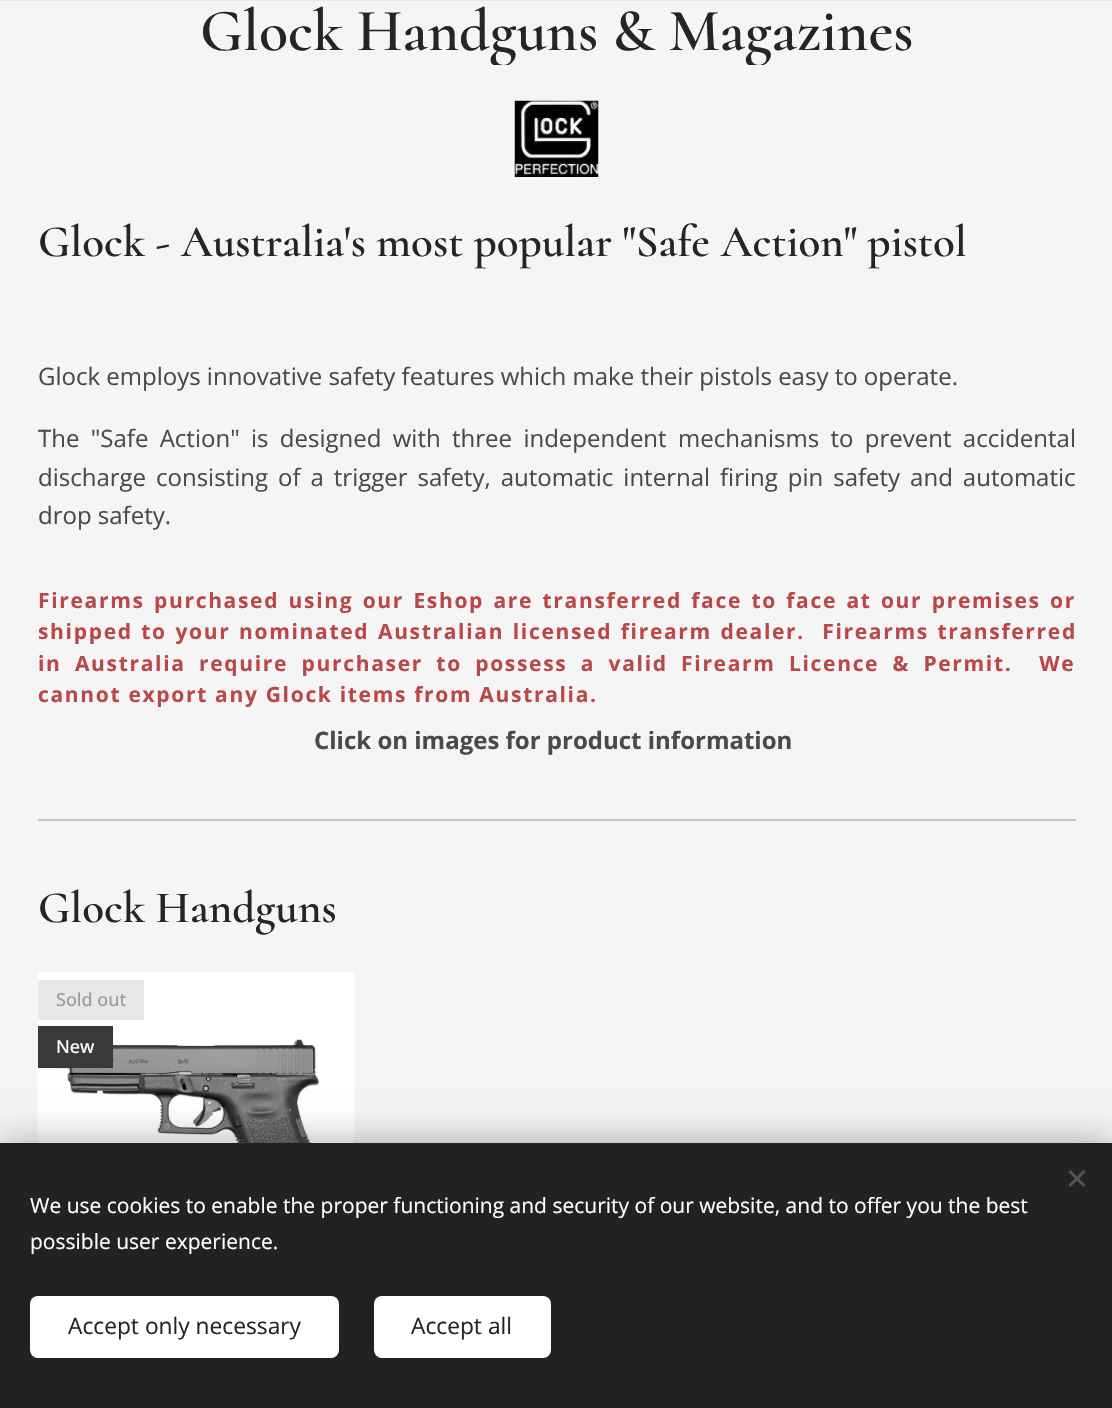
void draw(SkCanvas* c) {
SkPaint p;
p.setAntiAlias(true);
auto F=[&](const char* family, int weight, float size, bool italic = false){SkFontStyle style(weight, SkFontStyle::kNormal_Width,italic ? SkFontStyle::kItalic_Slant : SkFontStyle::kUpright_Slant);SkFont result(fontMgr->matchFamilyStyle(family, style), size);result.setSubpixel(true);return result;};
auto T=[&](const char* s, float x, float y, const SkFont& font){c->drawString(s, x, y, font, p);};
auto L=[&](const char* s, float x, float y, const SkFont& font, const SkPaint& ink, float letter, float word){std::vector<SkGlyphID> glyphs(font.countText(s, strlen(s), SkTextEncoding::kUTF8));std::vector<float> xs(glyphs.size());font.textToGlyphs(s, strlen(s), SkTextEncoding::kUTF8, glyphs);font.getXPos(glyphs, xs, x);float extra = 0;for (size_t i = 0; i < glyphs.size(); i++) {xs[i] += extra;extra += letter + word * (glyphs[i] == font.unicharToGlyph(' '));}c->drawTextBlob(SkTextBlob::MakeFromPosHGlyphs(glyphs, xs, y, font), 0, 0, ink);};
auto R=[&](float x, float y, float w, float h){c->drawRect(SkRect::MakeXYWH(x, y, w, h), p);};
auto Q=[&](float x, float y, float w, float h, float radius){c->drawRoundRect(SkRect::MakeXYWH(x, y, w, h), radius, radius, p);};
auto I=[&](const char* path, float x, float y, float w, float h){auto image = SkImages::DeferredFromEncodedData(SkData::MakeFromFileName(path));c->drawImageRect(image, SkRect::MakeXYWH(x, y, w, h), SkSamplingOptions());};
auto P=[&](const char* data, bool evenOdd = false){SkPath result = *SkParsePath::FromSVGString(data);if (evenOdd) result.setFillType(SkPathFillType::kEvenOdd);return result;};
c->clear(0xfff5f5f5);
p.setColor(0xffe8e8e8);
R(0,0,1112,1);
c->save();
c->clipRect(SkRect::MakeXYWH(38,0,1038,65));
auto f1 = F("Cormorant",600,60);
p.setColor(0xff252525);
T("Glock Handguns & Magazines",200,50,f1);
c->restore();
I("1.png",514,100,85,77);
auto f2 = F("Cormorant",600,45);
T("Glock - Australia's most popular \"Safe Action\" pistol",38,256,f2);
auto f3 = F("Open Sans",400,24);
p.setColor(0xff4a4a4a);
T("Glock employs innovative safety features which make their pistols easy to operate.",38,385,f3);
L("The \"Safe Action\" is designed with three independent mechanisms to prevent accidental",38,447,f3,p,0,5.1);
L("discharge consisting of a trigger safety, automatic internal firing pin safety and automatic",38,486,f3,p,0,3.75);
T("drop safety.",38,524,f3);
auto f4 = F("Open Sans",700,21);
p.setColor(0xffbb4747);
L("Firearms purchased using our Eshop are transferred face to face at our premises or",38,608,f4,p,1.68,2.25);
L("shipped to your nominated Australian licensed firearm dealer.  Firearms transferred",38,639,f4,p,1.68,1.5);
L("in Australia require purchaser to possess a valid Firearm Licence & Permit.  We",38,671,f4,p,1.68,6.25);
L("cannot export any Glock items from Australia.",38,702,f4,p,1.68,0);
auto f5 = F("Open Sans",700,24);
p.setColor(0xff4a4a4a);
T("Click on images for product information",314,749,f5);
p.setColor(0xffc4c4c4);
R(38,819,1038,2);
p.setColor(0xff252525);
T("Glock Handguns",38,922,f2);
I("2.png",38,972,316,171);
p.setColor(0xffe8e8e8);
R(38,980,106,40);
auto f6 = F("Open Sans",500,18);
p.setColor(0xff9d9d9d);
T("Sold out",56,1006,f6);
p.setColor(0xff393939);
R(38,1026,75,42);
p.setColor(0xffffffff);
T("New",56,1053,f6);
p.setColor(0x54000000);
p.setMaskFilter(SkMaskFilter::MakeBlur(kNormal_SkBlurStyle, 19));
c->drawRect(SkRect::MakeXYWH(0,1143,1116,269),p);
p.setMaskFilter(nullptr);
p.setColor(0xff222222);
R(0,1143,1112,265);
p.setColor(0xff555555);
c->drawPath(P("M1068.5 1185l15-15l2 2l-15 15z"),p);
c->drawPath(P("M1070.5 1170l15 15l-2 2l-15-15z"),p);
auto f7 = F("Open Sans",400,21);
p.setColor(0xffffffff);
T("We use cookies to enable the proper functioning and security of our website, and to offer you the best",30,1213,f7);
T("possible user experience.",30,1249,f7);
Q(30,1296,309,62,8);
auto f8 = F("Open Sans",400,22.75);
p.setColor(0xff252525);
T("Accept only necessary",68,1334,f8);
p.setColor(0xffffffff);
Q(374,1296,177,62,8);
p.setColor(0xff252525);
T("Accept all",411,1334,f8);
}
